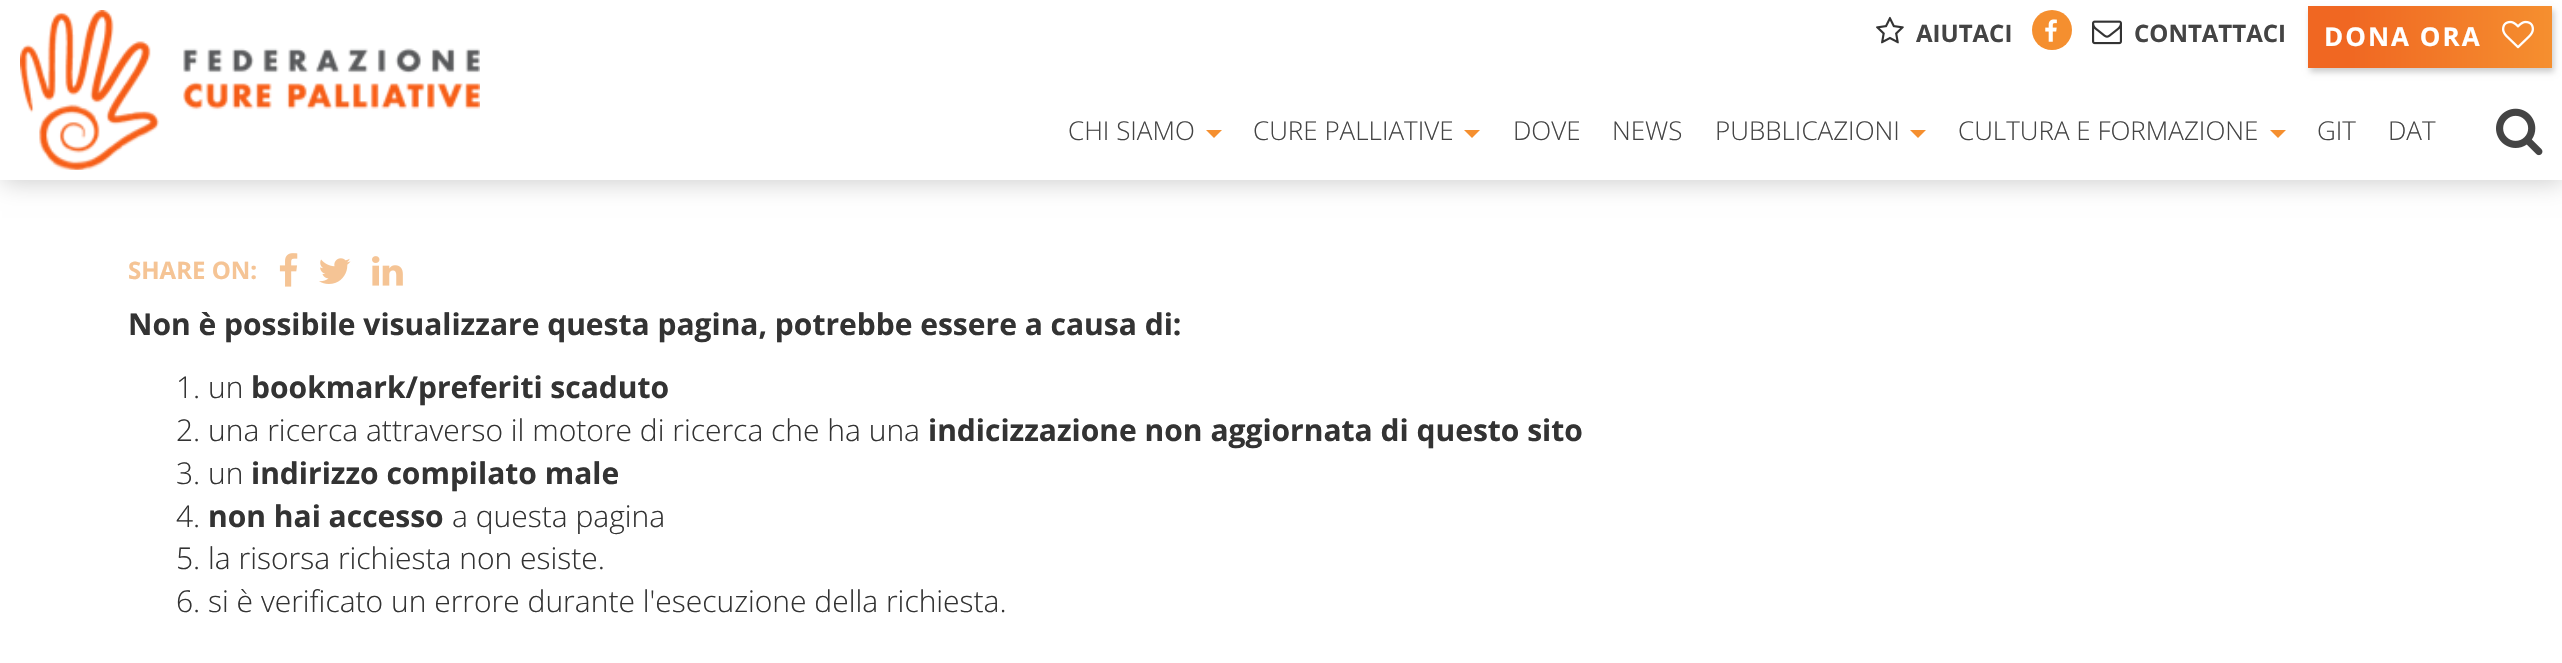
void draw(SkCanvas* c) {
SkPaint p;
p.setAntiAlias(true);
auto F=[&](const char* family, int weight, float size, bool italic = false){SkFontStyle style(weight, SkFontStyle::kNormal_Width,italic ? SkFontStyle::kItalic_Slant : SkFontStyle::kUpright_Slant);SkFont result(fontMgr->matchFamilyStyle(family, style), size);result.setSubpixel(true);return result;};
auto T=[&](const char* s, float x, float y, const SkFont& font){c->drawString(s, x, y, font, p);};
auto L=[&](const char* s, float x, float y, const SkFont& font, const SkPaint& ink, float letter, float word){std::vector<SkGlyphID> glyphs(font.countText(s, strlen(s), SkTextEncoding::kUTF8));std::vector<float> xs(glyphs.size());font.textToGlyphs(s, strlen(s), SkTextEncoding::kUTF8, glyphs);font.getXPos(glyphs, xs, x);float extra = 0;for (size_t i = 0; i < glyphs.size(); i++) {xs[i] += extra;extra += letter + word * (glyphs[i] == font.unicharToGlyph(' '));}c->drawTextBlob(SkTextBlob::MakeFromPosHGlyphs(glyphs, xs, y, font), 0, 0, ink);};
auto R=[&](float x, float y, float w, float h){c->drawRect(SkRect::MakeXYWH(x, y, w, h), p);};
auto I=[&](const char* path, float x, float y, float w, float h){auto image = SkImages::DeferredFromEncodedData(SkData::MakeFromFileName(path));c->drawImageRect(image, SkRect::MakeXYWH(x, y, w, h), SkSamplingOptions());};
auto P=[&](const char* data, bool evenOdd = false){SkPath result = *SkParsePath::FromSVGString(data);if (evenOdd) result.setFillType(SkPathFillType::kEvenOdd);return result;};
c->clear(0xffffffff);
p.setColor(0x33000000);
p.setMaskFilter(SkMaskFilter::MakeBlur(kNormal_SkBlurStyle, 12));
c->drawRect(SkRect::MakeXYWH(2,2,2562,180),p);
p.setMaskFilter(nullptr);
p.setColor(0xffffffff);
R(0,0,2562,180);
I("1.png",20,10,460,160);
I("2.png",1876,16,28,28);
auto f1 = F("Open Sans",700,24);
p.setColor(0xff444444);
T("AIUTACI",1916,42,f1);
p.setColor(0xfff58f2f);
c->drawCircle(2052,30,20,p);
I("3.png",2045,19,12,23);
I("4.png",2092,20,30,25);
p.setColor(0xff444444);
T("CONTATTACI",2134,42,f1);
p.setColor(0x33000000);
p.setMaskFilter(SkMaskFilter::MakeBlur(kNormal_SkBlurStyle, 3));
c->drawRect(SkRect::MakeXYWH(2310,10,244,62),p);
p.setMaskFilter(nullptr);
{
const SkColor colors[] = {0xfff06722,0xfff06722,0xfff58f2f};
const float stops[] = {0,.16,1};
const SkPoint ends[] = {{2308,37}, {2552,37}};
p.setShader(SkGradientShader::MakeLinear(ends, colors, stops, 3, SkTileMode::kClamp));
p.setAlpha(255);
}
R(2308,6,244,62);
auto f2 = F("Open Sans",700,26);
p.setShader(nullptr);
p.setColor(0xffffffff);
L("DONA ORA",2324,46,f2,p,2,0);
I("5.png",2502,20,32,29);
auto f3 = F("Open Sans",300,26);
p.setColor(0xff444444);
T("CHI SIAMO",1068,140,f3);
p.setColor(0xfff58f2f);
c->drawPath(P("M1206 130h16l-8 8z"),p);
p.setColor(0xff444444);
T("CURE PALLIATIVE",1253,140,f3);
p.setColor(0xfff58f2f);
c->drawPath(P("M1464 130h16l-8 8z"),p);
p.setColor(0xff444444);
T("DOVE",1513,140,f3);
T("NEWS",1612,140,f3);
T("PUBBLICAZIONI",1715,140,f3);
p.setColor(0xfff58f2f);
c->drawPath(P("M1910 130h16l-8 8z"),p);
p.setColor(0xff444444);
T("CULTURA E FORMAZIONE",1958,140,f3);
p.setColor(0xfff58f2f);
c->drawPath(P("M2270 130h16l-8 8z"),p);
p.setColor(0xff444444);
T("GIT",2317,140,f3);
T("DAT",2388,140,f3);
I("6.png",2496,108,47,48);
p.setColor(0xfff5c495);
T("SHARE ON:",128,279,f1);
I("7.png",279,253,19,34);
I("8.png",319,258,32,26);
I("9.png",372,256,31,30);
auto f4 = F("Open Sans",700,30);
p.setColor(0xff333333);
T("Non è possibile visualizzare questa pagina, potrebbe essere a causa di:",128,335,f4);
auto f5 = F("Open Sans",300,30);
T("1. un",176,398,f5);
T("bookmark/preferiti scaduto",251,398,f4);
T("2. una ricerca attraverso il motore di ricerca che ha una",176,441,f5);
T("indicizzazione non aggiornata di questo sito",928,441,f4);
T("3. un",176,484,f5);
T("indirizzo compilato male",251,484,f4);
T("4.",176,527,f5);
T("non hai accesso",208,527,f4);
T("a questa pagina",452,527,f5);
T("5. la risorsa richiesta non esiste.",176,569,f5);
T("6. si è verificato un errore durante l'esecuzione della richiesta.",176,612,f5);
}
